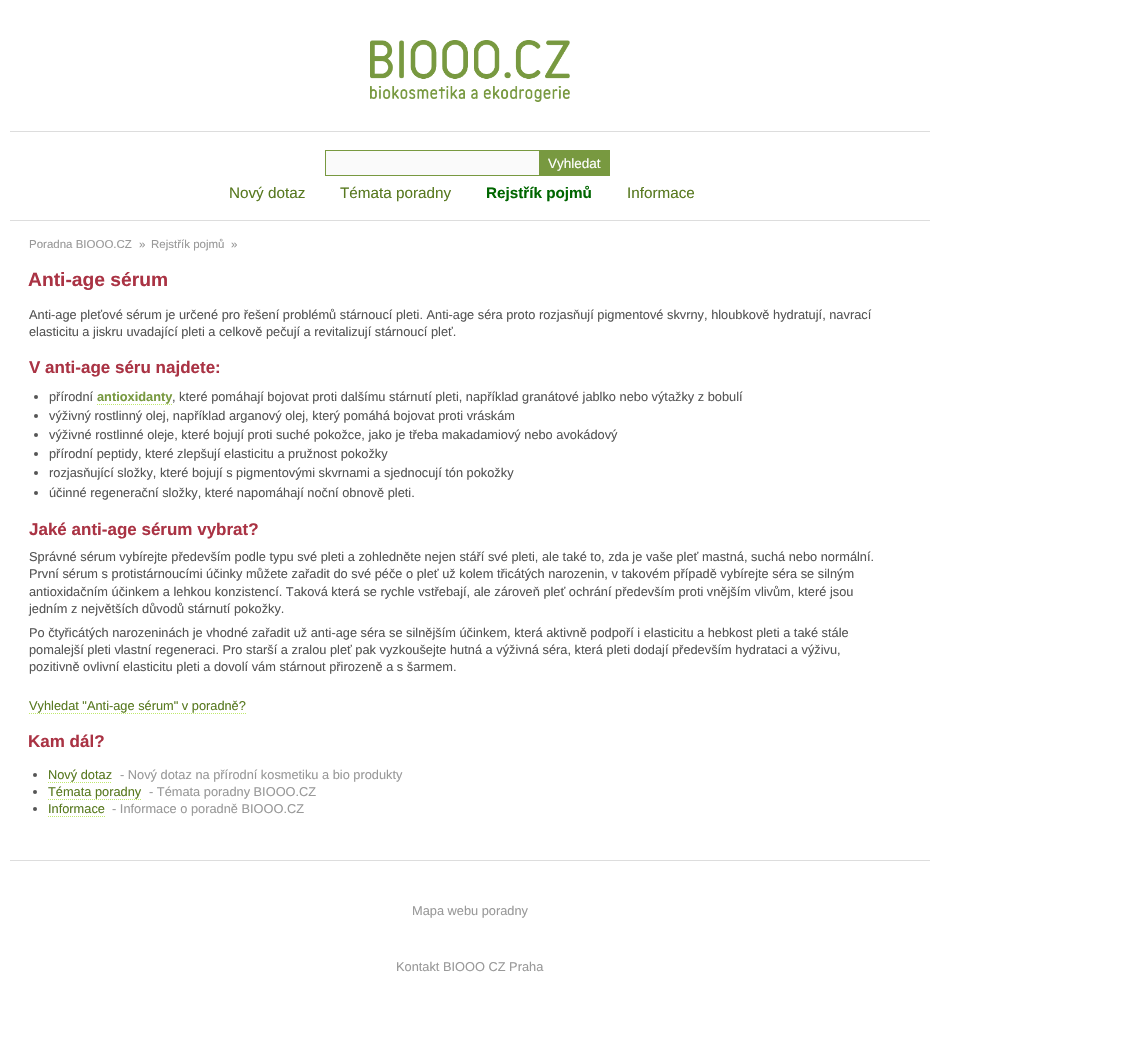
void draw(SkCanvas* c) {
SkPaint p;
p.setAntiAlias(true);
auto F=[&](const char* family, int weight, float size, bool italic = false){SkFontStyle style(weight, SkFontStyle::kNormal_Width,italic ? SkFontStyle::kItalic_Slant : SkFontStyle::kUpright_Slant);SkFont result(fontMgr->matchFamilyStyle(family, style), size);result.setSubpixel(true);return result;};
auto T=[&](const char* s, float x, float y, const SkFont& font){c->drawString(s, x, y, font, p);};
auto R=[&](float x, float y, float w, float h){c->drawRect(SkRect::MakeXYWH(x, y, w, h), p);};
auto I=[&](const char* path, float x, float y, float w, float h){auto image = SkImages::DeferredFromEncodedData(SkData::MakeFromFileName(path));c->drawImageRect(image, SkRect::MakeXYWH(x, y, w, h), SkSamplingOptions());};
auto P=[&](const char* data, bool evenOdd = false){SkPath result = *SkParsePath::FromSVGString(data);if (evenOdd) result.setFillType(SkPathFillType::kEvenOdd);return result;};
c->clear(0xffffffff);
I("1.png",370,40,200,62);
p.setColor(0xffdddddd);
R(10,131,920,1);
R(10,220,920,1);
p.setStroke(true);
p.setStrokeWidth(1);
p.setColor(0xff789940);
c->drawRect(SkRect::MakeXYWH(325.5,150.5,284,25),p);
p.setStroke(false);
p.setColor(0xfffafafa);
R(326,151,213,24);
p.setColor(0xff789940);
R(539,151,70,24);
auto f1 = F("Liberation Sans",400,13.5);
p.setColor(0xffffffff);
T("Vyhledat",548,168,f1);
auto f2 = F("Liberation Sans",400,15.25);
p.setColor(0xff587920);
T("Nový dotaz",229,198,f2);
T("Témata poradny",340,198,f2);
auto f3 = F("Liberation Sans",700,15.25);
p.setColor(0xff006600);
T("Rejstřík pojmů",486,198,f3);
p.setColor(0xff587920);
T("Informace",627,198,f2);
auto f4 = F("Liberation Sans",400,11.5);
p.setColor(0xff999999);
T("Poradna BIOOO.CZ",29,248,f4);
T("»",139,248,f4);
T("Rejstřík pojmů",151,248,f4);
T("»",231,248,f4);
auto f5 = F("Liberation Sans",700,19.25);
p.setColor(0xffaa3344);
T("Anti-age sérum",28,286,f5);
auto f6 = F("Liberation Sans",400,12.8);
p.setColor(0xff555555);
T("Anti-age pleťové sérum je určené pro řešení problémů stárnoucí pleti. Anti-age séra proto rozjasňují pigmentové skvrny, hloubkově hydratují, navrací",29,319,f6);
T("elasticitu a jiskru uvadající pleti a celkově pečují a revitalizují stárnoucí pleť.",29,336,f6);
auto f7 = F("Liberation Sans",700,17);
p.setColor(0xffaa3344);
T("V anti-age séru najdete:",29,373,f7);
p.setColor(0xff555555);
c->drawCircle(36,397,2,p);
T("přírodní",49,401,f6);
auto f8 = F("Liberation Sans",700,12.8);
p.setColor(0xff789940);
T("antioxidanty",97,401,f8);
p.setStroke(true);
p.setColor(0xffc0e96c);
p.setPathEffect(SkDashPathEffect::Make({{1,1}}, 0));
c->drawPath(P("M97 404.5h75"),p);
p.setPathEffect(nullptr);
p.setStroke(false);
p.setColor(0xff555555);
T(", které pomáhají bojovat proti dalšímu stárnutí pleti, například granátové jablko nebo výtažky z bobulí",172,401,f6);
c->drawCircle(36,416,2,p);
T("výživný rostlinný olej, například arganový olej, který pomáhá bojovat proti vráskám",49,420,f6);
c->drawCircle(36,435,2,p);
T("výživné rostlinné oleje, které bojují proti suché pokožce, jako je třeba makadamiový nebo avokádový",49,439,f6);
c->drawCircle(36,454,2,p);
T("přírodní peptidy, které zlepšují elasticitu a pružnost pokožky",49,458,f6);
c->drawCircle(36,473,2,p);
T("rozjasňující složky, které bojují s pigmentovými skvrnami a sjednocují tón pokožky",49,477,f6);
c->drawCircle(36,493,2,p);
T("účinné regenerační složky, které napomáhají noční obnově pleti.",49,497,f6);
p.setColor(0xffaa3344);
T("Jaké anti-age sérum vybrat?",29,535,f7);
p.setColor(0xff555555);
T("Správné sérum vybírejte především podle typu své pleti a zohledněte nejen stáří své pleti, ale také to, zda je vaše pleť mastná, suchá nebo normální.",29,561,f6);
T("První sérum s protistárnoucími účinky můžete zařadit do své péče o pleť už kolem třicátých narozenin, v takovém případě vybírejte séra se silným",29,578,f6);
T("antioxidačním účinkem a lehkou konzistencí. Taková která se rychle vstřebají, ale zároveň pleť ochrání především proti vnějším vlivům, které jsou",29,596,f6);
T("jedním z největších důvodů stárnutí pokožky.",29,613,f6);
T("Po čtyřicátých narozeninách je vhodné zařadit už anti-age séra se silnějším účinkem, která aktivně podpoří i elasticitu a hebkost pleti a také stále",29,637,f6);
T("pomalejší pleti vlastní regeneraci. Pro starší a zralou pleť pak vyzkoušejte hutná a výživná séra, která pleti dodají především hydrataci a výživu,",29,654,f6);
T("pozitivně ovlivní elasticitu pleti a dovolí vám stárnout přirozeně a s šarmem.",29,671,f6);
p.setColor(0xff587920);
T("Vyhledat \"Anti-age sérum\" v poradně?",29,710,f6);
p.setStroke(true);
p.setColor(0xffc0e96c);
p.setPathEffect(SkDashPathEffect::Make({{1,1}}, 0));
c->drawPath(P("M29 713.5h217"),p);
p.setPathEffect(nullptr);
p.setStroke(false);
p.setColor(0xffaa3344);
T("Kam dál?",28,747,f7);
p.setColor(0xff555555);
c->drawCircle(35,775,2,p);
p.setColor(0xff587920);
T("Nový dotaz",48,779,f6);
p.setStroke(true);
p.setColor(0xffc0e96c);
p.setPathEffect(SkDashPathEffect::Make({{1,1}}, 0));
c->drawPath(P("M48 782.5h64"),p);
p.setPathEffect(nullptr);
p.setStroke(false);
p.setColor(0xff999999);
T("- Nový dotaz na přírodní kosmetiku a bio produkty",120,779,f6);
p.setColor(0xff555555);
c->drawCircle(35,792,2,p);
p.setColor(0xff587920);
T("Témata poradny",48,796,f6);
p.setStroke(true);
p.setColor(0xffc0e96c);
p.setPathEffect(SkDashPathEffect::Make({{1,1}}, 0));
c->drawPath(P("M48 799.5h94"),p);
p.setPathEffect(nullptr);
p.setStroke(false);
p.setColor(0xff999999);
T("- Témata poradny BIOOO.CZ",149,796,f6);
p.setColor(0xff555555);
c->drawCircle(35,809,2,p);
p.setColor(0xff587920);
T("Informace",48,813,f6);
p.setStroke(true);
p.setColor(0xffc0e96c);
p.setPathEffect(SkDashPathEffect::Make({{1,1}}, 0));
c->drawPath(P("M48 816.5h57"),p);
p.setPathEffect(nullptr);
p.setStroke(false);
p.setColor(0xff999999);
T("- Informace o poradně BIOOO.CZ",112,813,f6);
p.setColor(0xffdddddd);
R(10,860,920,1);
p.setColor(0xff999999);
T("Mapa webu poradny",412,915,f6);
T("Kontakt BIOOO CZ Praha",396,971,f6);
}
